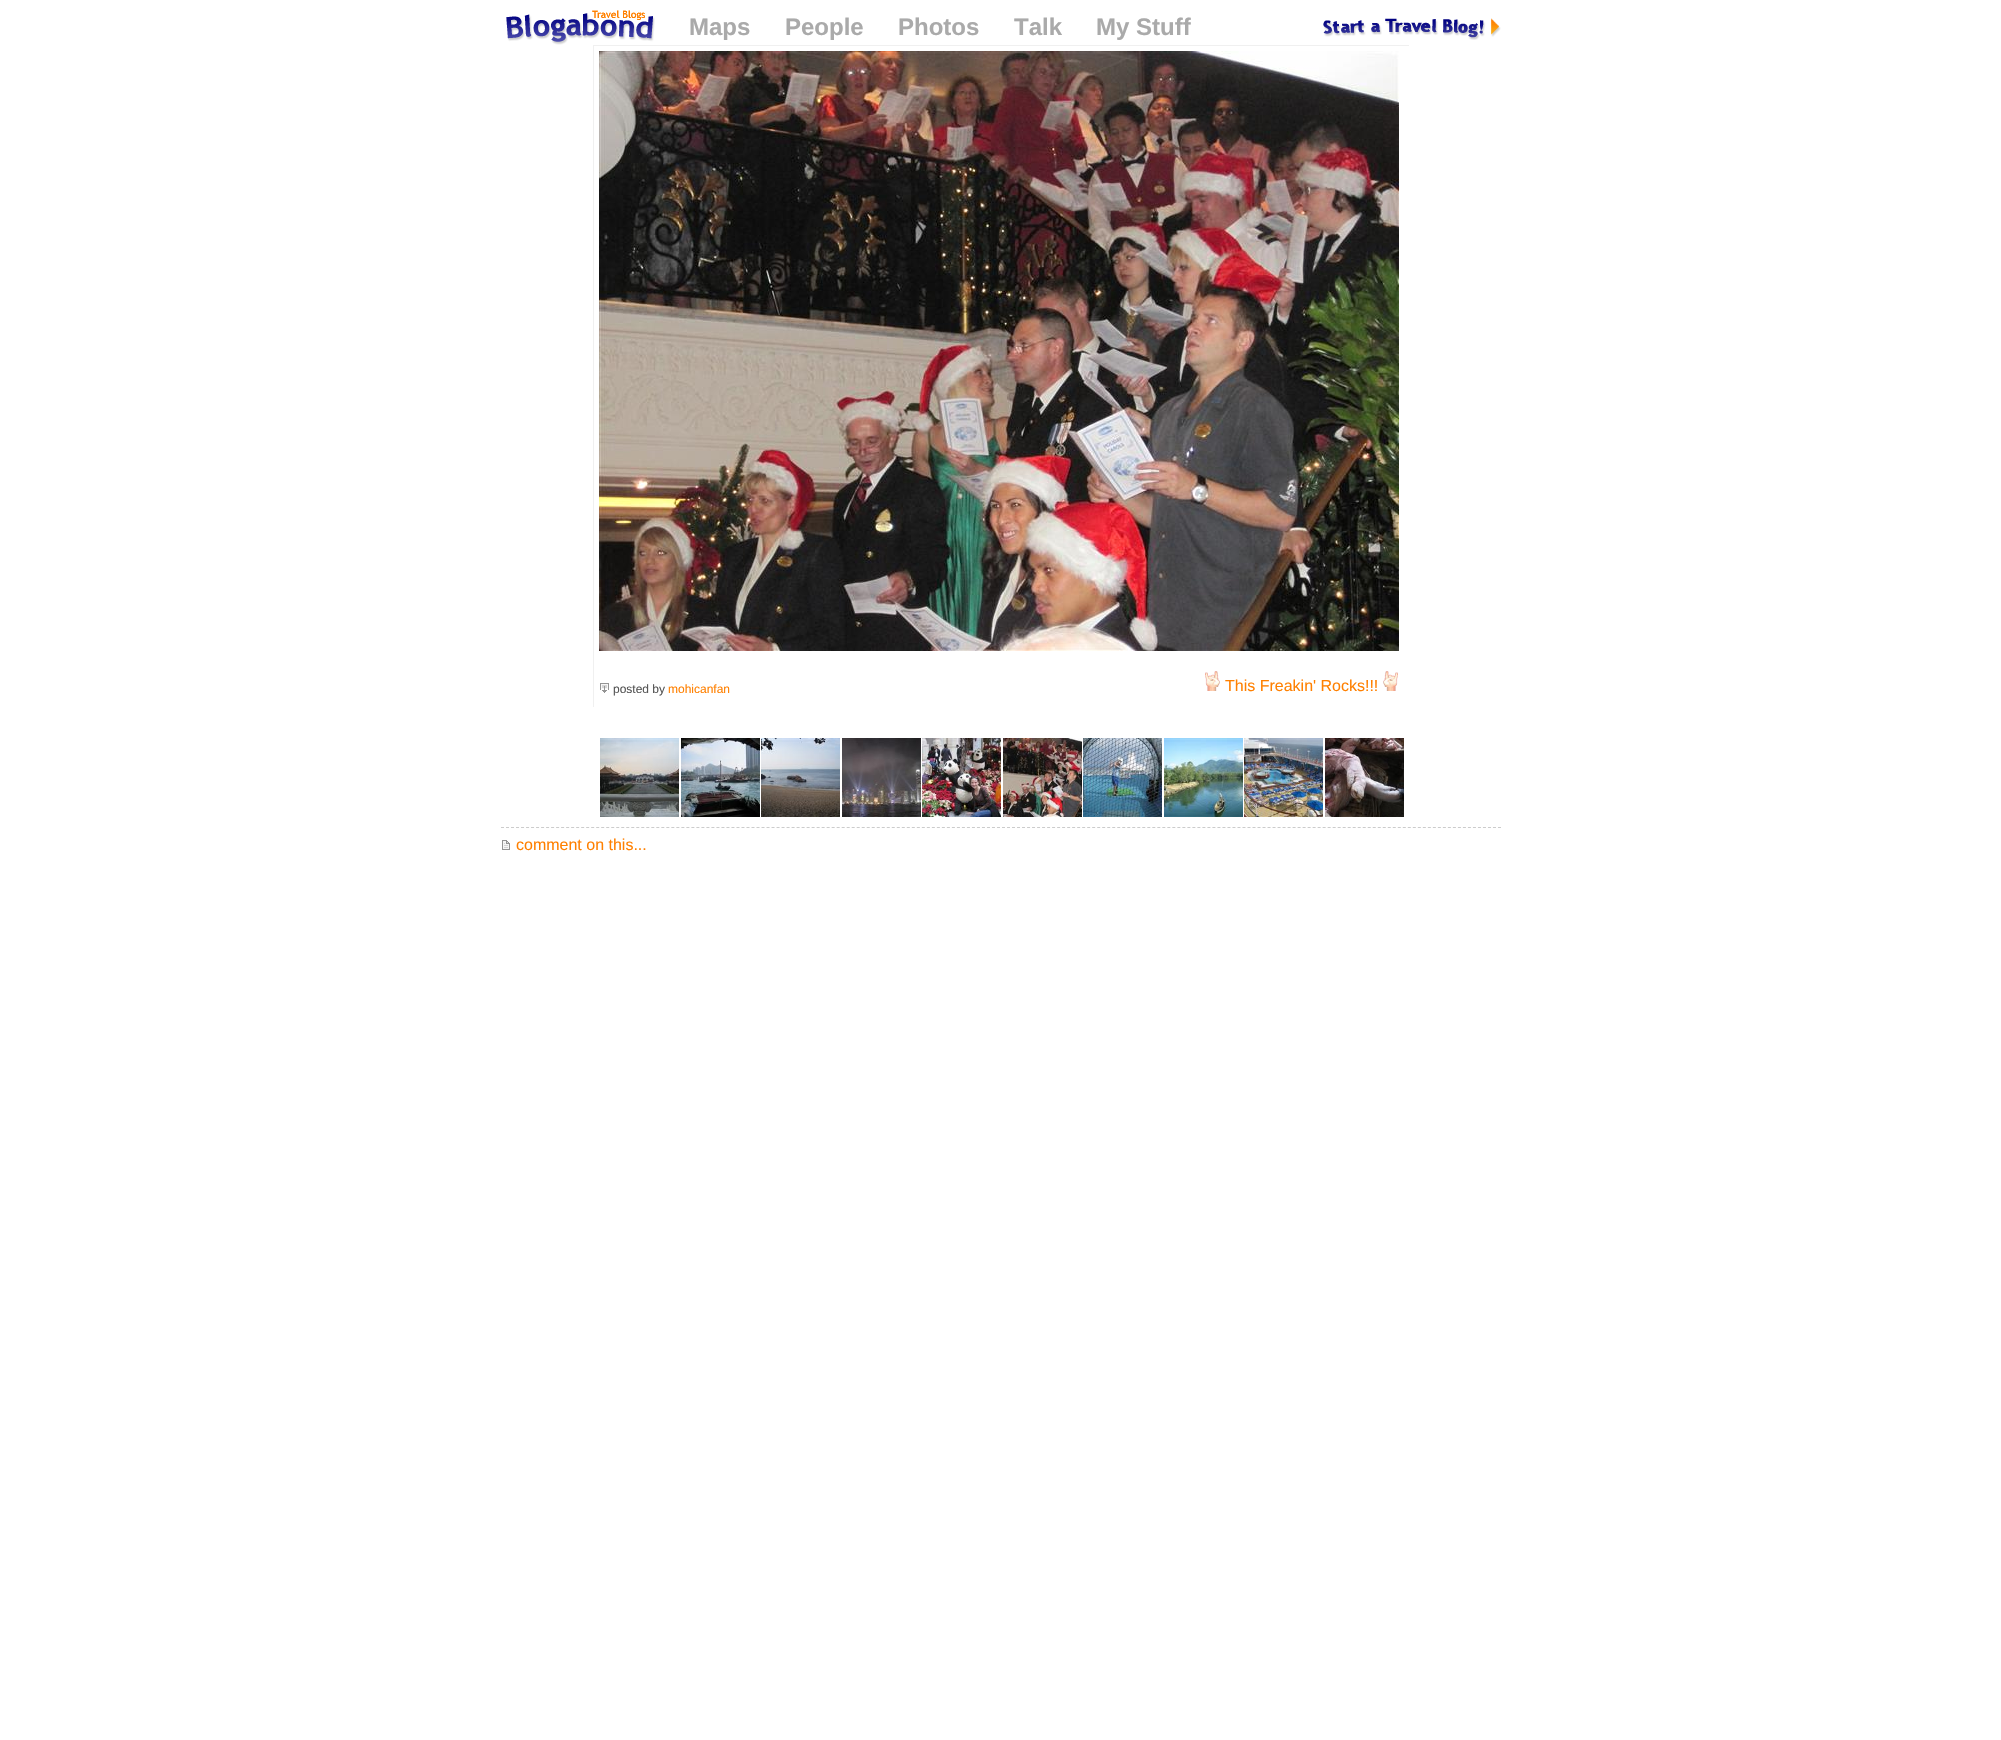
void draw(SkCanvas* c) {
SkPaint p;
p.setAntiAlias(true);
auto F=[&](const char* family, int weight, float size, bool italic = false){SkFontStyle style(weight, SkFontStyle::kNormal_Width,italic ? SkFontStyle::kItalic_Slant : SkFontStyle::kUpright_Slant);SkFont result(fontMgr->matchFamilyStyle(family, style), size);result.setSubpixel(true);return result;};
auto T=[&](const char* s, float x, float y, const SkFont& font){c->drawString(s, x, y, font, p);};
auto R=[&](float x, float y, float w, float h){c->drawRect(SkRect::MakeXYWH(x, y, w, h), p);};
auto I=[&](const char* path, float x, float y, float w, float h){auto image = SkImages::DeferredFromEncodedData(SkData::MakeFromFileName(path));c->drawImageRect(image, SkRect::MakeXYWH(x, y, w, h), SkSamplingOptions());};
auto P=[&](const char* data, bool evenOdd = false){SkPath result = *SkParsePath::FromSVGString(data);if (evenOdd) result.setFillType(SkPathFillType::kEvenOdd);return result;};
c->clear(0xffffffff);
I("1.png",506,10,149,35);
auto f1 = F("Liberation Sans",700,24);
p.setColor(0xffaaaaaa);
T("Maps",689,35,f1);
T("People",785,35,f1);
T("Photos",898,35,f1);
T("Talk",1014,35,f1);
T("My Stuff",1096,35,f1);
I("2.png",1323,18,178,22);
p.setColor(0xfff0f0f0);
R(593,45,816,1);
R(593,45,1,662);
I("3.png",599,51,800,600);
I("4.png",600,683,9,10);
auto f2 = F("Liberation Sans",400,12);
p.setColor(0xff555555);
T("posted by",613,693,f2);
p.setColor(0xffff8000);
T("mohicanfan",668,693,f2);
I("5.png",1205,671,15,20);
auto f3 = F("Liberation Sans",400,16);
T("This Freakin' Rocks!!!",1225,691,f3);
I("6.png",1383,671,15,20);
I("7.png",600,738,79,79);
I("8.png",681,738,79,79);
I("9.png",761,738,79,79);
I("10.png",842,738,79,79);
I("11.png",922,738,79,79);
I("12.png",1003,738,79,79);
I("13.png",1083,738,79,79);
I("14.png",1164,738,79,79);
I("15.png",1244,738,79,79);
I("16.png",1325,738,79,79);
p.setStroke(true);
p.setStrokeWidth(1);
p.setColor(0xffcccccc);
p.setPathEffect(SkDashPathEffect::Make({{3,2.01f}}, 0));
c->drawPath(P("M501 827.5h1000"),p);
p.setPathEffect(nullptr);
I("17.png",502,840,8,10);
p.setStroke(false);
p.setColor(0xffff8000);
T("comment on this...",516,850,f3);
}
